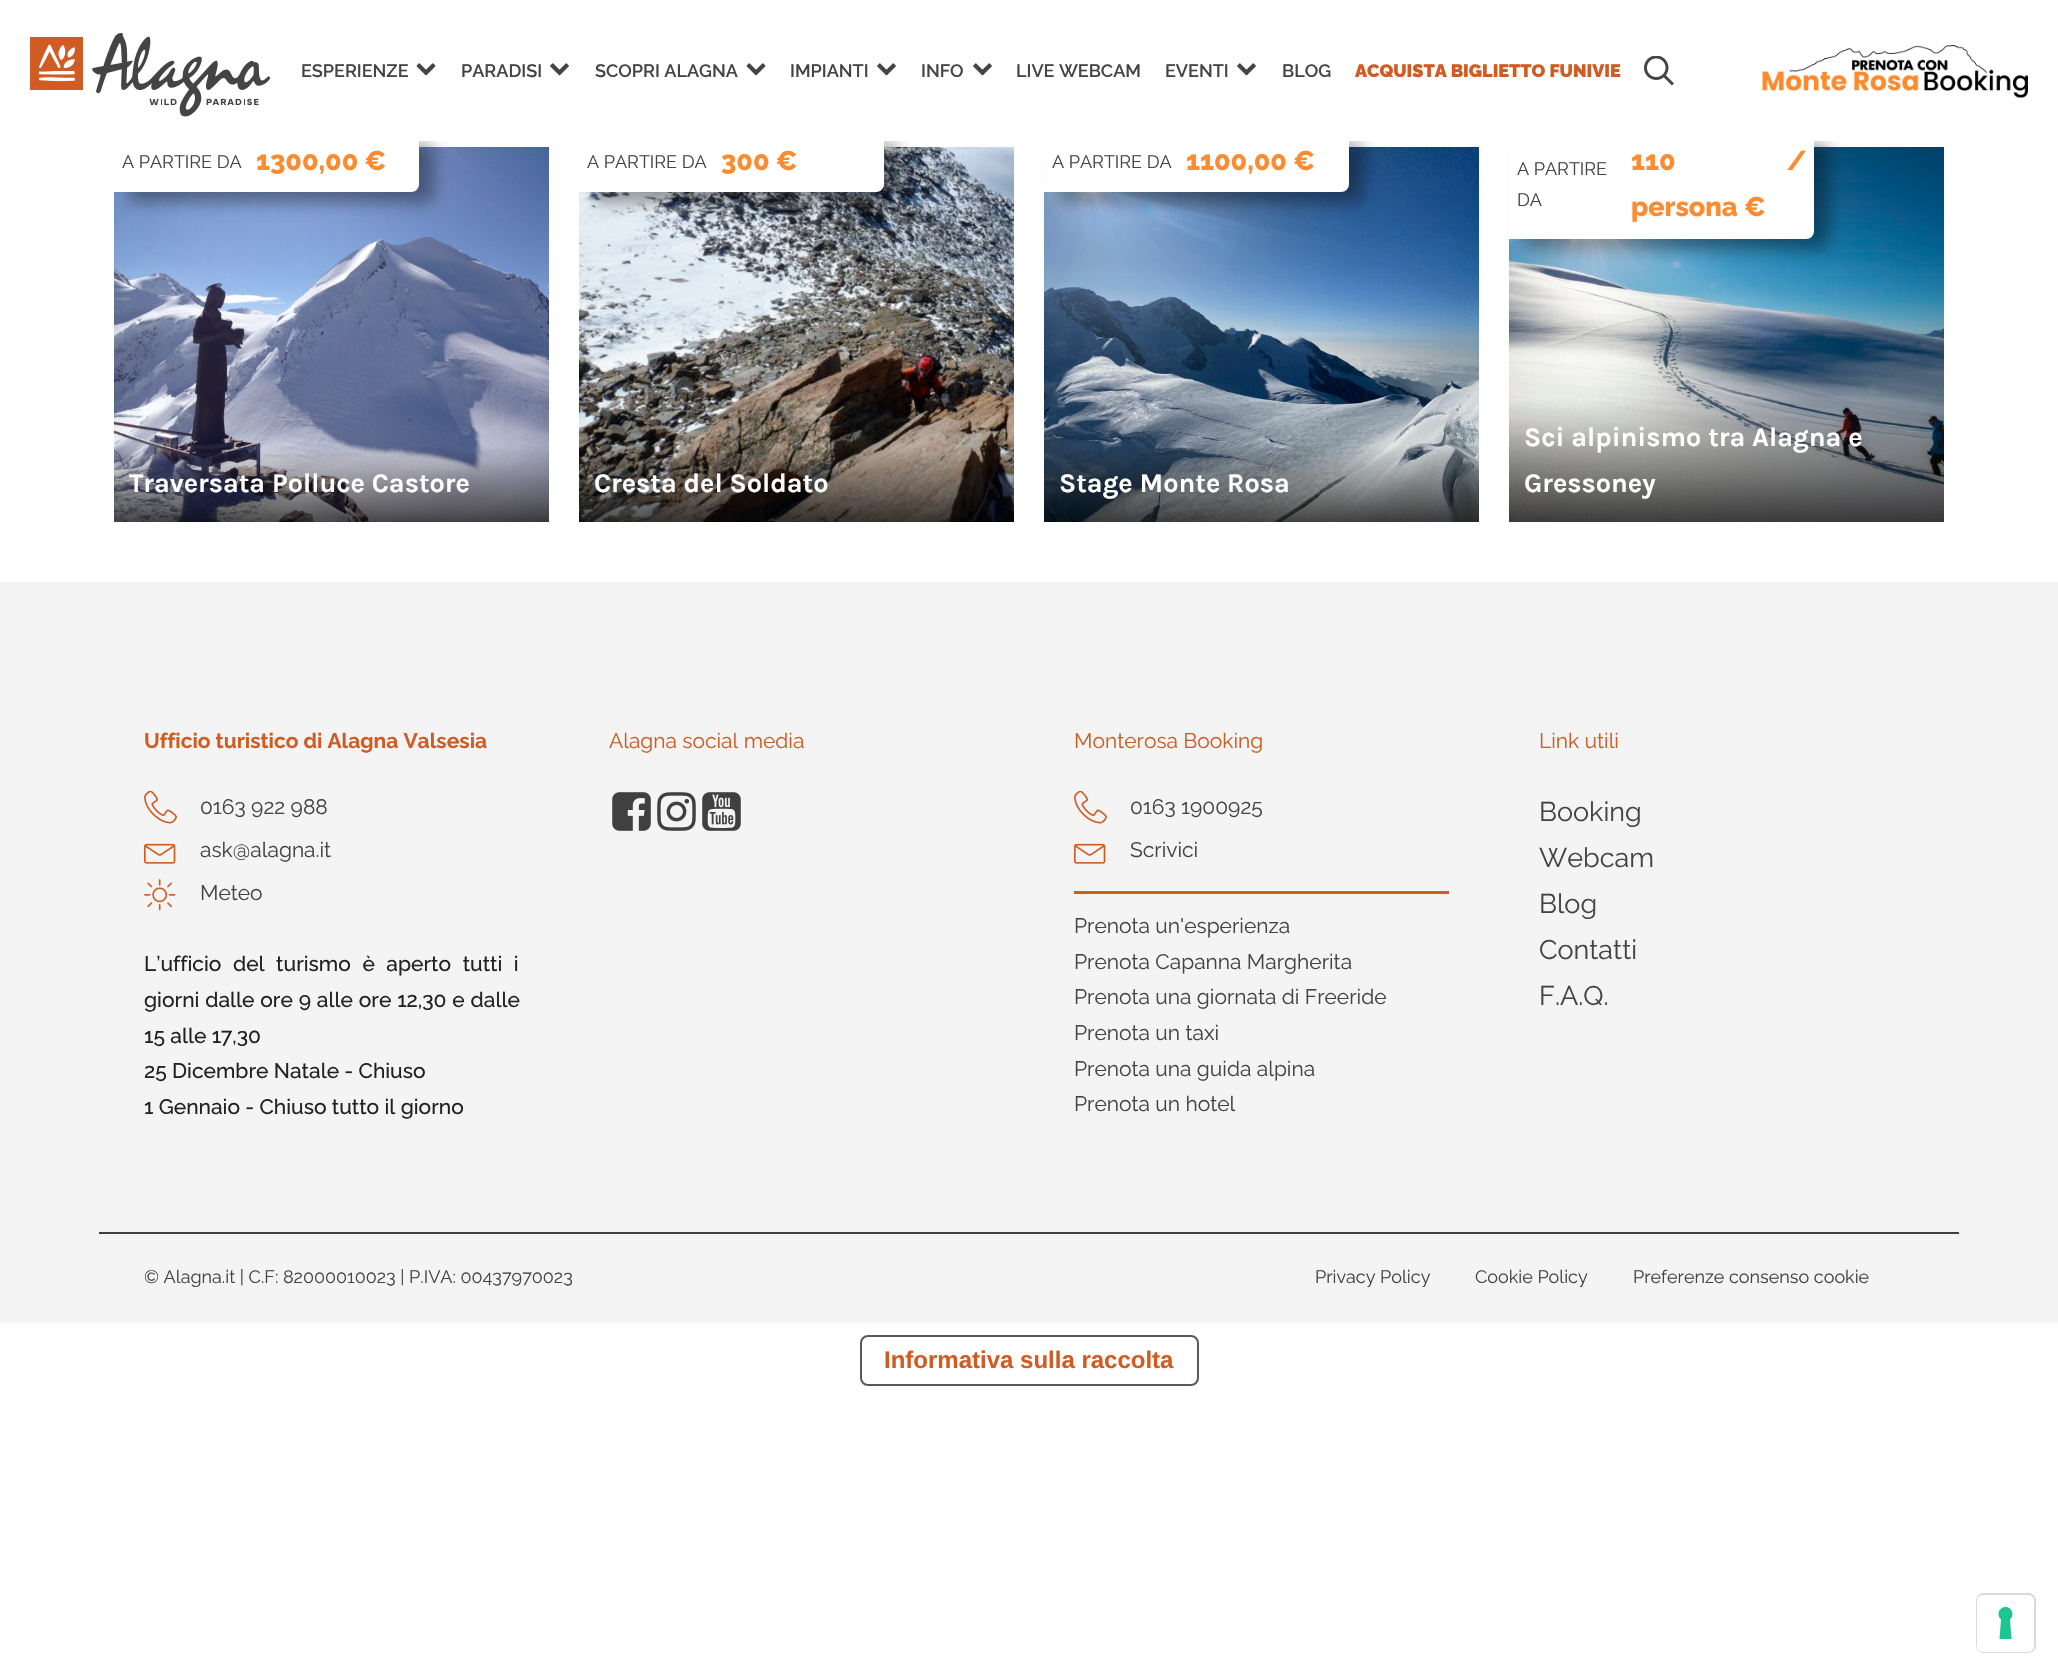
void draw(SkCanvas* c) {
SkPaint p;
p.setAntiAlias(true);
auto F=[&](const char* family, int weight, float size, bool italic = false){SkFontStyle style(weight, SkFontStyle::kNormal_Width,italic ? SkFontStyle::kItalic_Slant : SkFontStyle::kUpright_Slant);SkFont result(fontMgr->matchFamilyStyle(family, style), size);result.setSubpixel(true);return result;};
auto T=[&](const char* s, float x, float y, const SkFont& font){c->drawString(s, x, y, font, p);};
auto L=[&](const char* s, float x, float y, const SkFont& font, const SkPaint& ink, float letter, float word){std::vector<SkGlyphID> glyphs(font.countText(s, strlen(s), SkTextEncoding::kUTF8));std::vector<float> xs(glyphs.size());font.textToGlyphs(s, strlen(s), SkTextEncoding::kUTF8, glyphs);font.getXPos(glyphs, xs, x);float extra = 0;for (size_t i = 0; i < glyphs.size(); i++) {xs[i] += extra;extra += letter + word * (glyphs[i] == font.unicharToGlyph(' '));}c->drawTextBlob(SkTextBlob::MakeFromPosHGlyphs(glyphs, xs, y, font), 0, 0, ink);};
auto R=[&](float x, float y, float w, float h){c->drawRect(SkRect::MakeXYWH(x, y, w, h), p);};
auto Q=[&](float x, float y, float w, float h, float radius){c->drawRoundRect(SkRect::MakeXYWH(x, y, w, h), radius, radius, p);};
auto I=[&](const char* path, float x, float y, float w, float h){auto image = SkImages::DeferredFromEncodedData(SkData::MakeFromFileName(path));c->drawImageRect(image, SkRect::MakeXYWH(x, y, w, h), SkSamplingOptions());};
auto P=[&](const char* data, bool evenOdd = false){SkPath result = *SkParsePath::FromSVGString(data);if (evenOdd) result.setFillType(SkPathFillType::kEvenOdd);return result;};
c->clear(0xffffffff);
I("6.png",114,147,435,375);
p.setColor(0x5c000000);
p.setMaskFilter(SkMaskFilter::MakeBlur(kNormal_SkBlurStyle, 8));
c->drawRoundRect(SkRect::MakeXYWH(129,143,305,60),8,8,p);
p.setMaskFilter(nullptr);
p.setColor(0xffffffff);
c->drawPath(P("M114 132h297c4.5 0 8 3.5 8 8v44c0 4.5-3.5 8-8 8h-297z"),p);
I("7.png",579,147,435,375);
p.setColor(0x5c000000);
p.setMaskFilter(SkMaskFilter::MakeBlur(kNormal_SkBlurStyle, 8));
c->drawRoundRect(SkRect::MakeXYWH(594,143,305,60),8,8,p);
p.setMaskFilter(nullptr);
p.setColor(0xffffffff);
c->drawPath(P("M579 132h297c4.5 0 8 3.5 8 8v44c0 4.5-3.5 8-8 8h-297z"),p);
I("8.png",1044,147,435,375);
p.setColor(0x5c000000);
p.setMaskFilter(SkMaskFilter::MakeBlur(kNormal_SkBlurStyle, 8));
c->drawRoundRect(SkRect::MakeXYWH(1059,143,305,60),8,8,p);
p.setMaskFilter(nullptr);
p.setColor(0xffffffff);
c->drawPath(P("M1044 132h297c4.5 0 8 3.5 8 8v44c0 4.5-3.5 8-8 8h-297z"),p);
I("9.png",1509,147,435,375);
p.setColor(0x5c000000);
p.setMaskFilter(SkMaskFilter::MakeBlur(kNormal_SkBlurStyle, 8));
c->drawRoundRect(SkRect::MakeXYWH(1524,143,305,106),8,8,p);
p.setMaskFilter(nullptr);
p.setColor(0xffffffff);
c->drawPath(P("M1509 132h297c4.5 0 8 3.5 8 8v91c0 4.5-3.5 8-8 8h-297z"),p);
R(129,128,1710,13);
I("1.png",30,33,240,84);
auto f1 = F("Raleway",600,18);
p.setColor(0xff444444);
T("ESPERIENZE",301,77,f1);
I("2.png",416,63,20,13);
T("PARADISI",461,77,f1);
I("3.png",550,63,19,13);
T("SCOPRI ALAGNA",595,77,f1);
I("2.png",746,63,20,13);
T("IMPIANTI",790,77,f1);
I("3.png",877,63,19,13);
T("INFO",921,77,f1);
I("3.png",973,63,19,13);
T("LIVE WEBCAM",1016,77,f1);
T("EVENTI",1165,77,f1);
I("3.png",1237,63,19,13);
T("BLOG",1282,77,f1);
auto f2 = F("Raleway",900,18);
p.setColor(0xffd05c23);
T("ACQUISTA BIGLIETTO FUNIVIE",1355,77,f2);
I("4.png",1644,56,30,30);
I("5.png",1762,45,266,53);
auto f3 = F("Raleway",400,18);
p.setColor(0xff444444);
T("A PARTIRE DA",122,168,f3);
auto f4 = F("Raleway",800,27);
p.setColor(0xfffd8b2f);
T("1300,00 €",256,170,f4);
auto f5 = F("Karla",700,27);
p.setColor(0xffffffff);
T("Traversata Polluce Castore",129,492,f5);
p.setColor(0xff444444);
T("A PARTIRE DA",587,168,f3);
p.setColor(0xfffd8b2f);
T("300 €",721,170,f4);
p.setColor(0xffffffff);
T("Cresta del Soldato",594,492,f5);
p.setColor(0xff444444);
T("A PARTIRE DA",1052,168,f3);
p.setColor(0xfffd8b2f);
T("1100,00 €",1186,170,f4);
p.setColor(0xffffffff);
T("Stage Monte Rosa",1059,492,f5);
p.setColor(0xff444444);
T("A PARTIRE",1517,175,f3);
T("DA",1517,206,f3);
p.setColor(0xfffd8b2f);
L("110 /",1631,170,f4,p,0,105);
T("persona €",1631,216,f4);
p.setColor(0xffffffff);
T("Sci alpinismo tra Alagna e",1524,446,f5);
T("Gressoney",1524,492,f5);
p.setColor(0xfff4f4f4);
R(0,582,2058,741);
auto f6 = F("Raleway",700,21);
p.setColor(0xffd05c23);
T("Ufficio turistico di Alagna Valsesia",144,748,f6);
I("10.png",144,791,33,33);
auto f7 = F("Raleway",400,21);
p.setColor(0xff444444);
T("0163 922 988",200,814,f7);
I("11.png",144,843,32,21);
T("ask@alagna.it",200,857,f7);
I("12.png",144,879,32,32);
T("Meteo",200,900,f7);
auto f8 = F("Raleway",500,21);
p.setColor(0xff222222);
L("L’ufficio del turismo è aperto tutti i",144,971,f8,p,0,6.25);
L("giorni dalle ore 9 alle ore 12,30 e dalle",144,1007,f8,p,0,.5);
T("15 alle 17,30",144,1043,f8);
T("25 Dicembre Natale - Chiuso",144,1078,f8);
T("1 Gennaio - Chiuso tutto il giorno",144,1114,f8);
p.setColor(0xffd05c23);
T("Alagna social media",609,748,f7);
I("13.png",612,792,39,39);
I("14.png",657,792,39,39);
I("15.png",702,792,39,39);
T("Monterosa Booking",1074,748,f7);
I("10.png",1074,791,33,33);
p.setColor(0xff444444);
T("0163 1900925",1130,814,f7);
I("11.png",1074,843,32,21);
T("Scrivici",1130,857,f7);
p.setColor(0xffd05c23);
R(1074,891,375,3);
p.setColor(0xff444444);
T("Prenota un'esperienza",1074,933,f7);
T("Prenota Capanna Margherita",1074,969,f7);
T("Prenota una giornata di Freeride",1074,1004,f7);
T("Prenota un taxi",1074,1040,f7);
T("Prenota una guida alpina",1074,1076,f7);
T("Prenota un hotel",1074,1111,f7);
p.setColor(0xffd05c23);
T("Link utili",1539,748,f7);
auto f9 = F("Raleway",400,27);
p.setColor(0xff444444);
T("Booking",1539,821,f9);
T("Webcam",1539,867,f9);
T("Blog",1539,913,f9);
T("Contatti",1539,959,f9);
T("F.A.Q.",1539,1005,f9);
p.setColor(0xff404040);
R(99,1232,1860,2);
p.setColor(0xff444444);
T("© Alagna.it | C.F: 82000010023 | P.IVA: 00437970023",144,1283,f3);
T("Privacy Policy",1315,1283,f3);
T("Cookie Policy",1475,1283,f3);
T("Preferenze consenso cookie",1633,1283,f3);
p.setStroke(true);
p.setStrokeWidth(2);
p.setColor(0xff595959);
c->drawRoundRect(SkRect::MakeXYWH(861,1336,337,49),7,7,p);
auto f10 = F("Liberation Sans",700,24);
p.setStroke(false);
p.setColor(0xffd05c23);
T("Informativa sulla raccolta",884,1368,f10);
p.setStroke(true);
p.setColor(0xffd9d9d9);
c->drawRoundRect(SkRect::MakeXYWH(1977,1594,58,58),7,7,p);
p.setStroke(false);
p.setColor(0xffffffff);
Q(1977,1595,57,57,6);
p.setColor(0xff1cc691);
c->drawPath(P("M2005.5 1607c6.5 0 9.5 8 4.5 12.5l1.5 19.5h-12l1.5-19.5c-5-4.5-2-12.5 4.5-12.5z",true),p);
}
